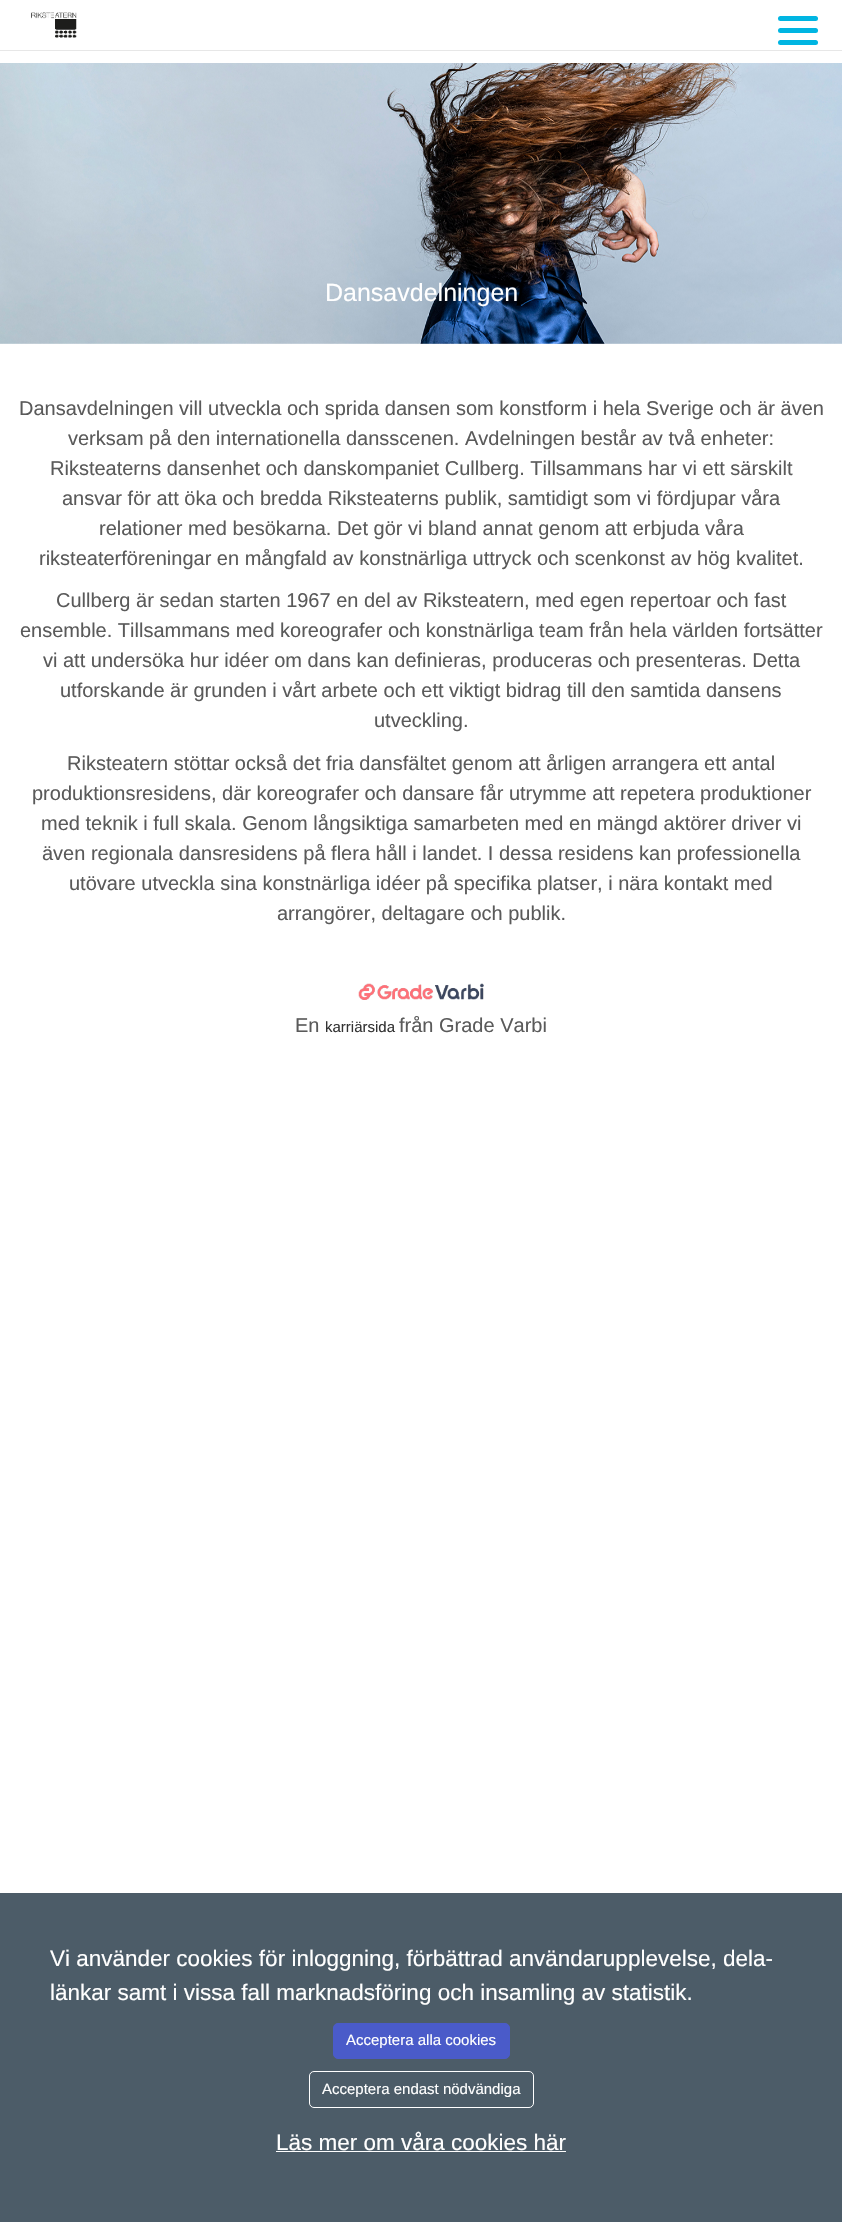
void draw(SkCanvas* c) {
SkPaint p;
p.setAntiAlias(true);
auto F=[&](const char* family, int weight, float size, bool italic = false){SkFontStyle style(weight, SkFontStyle::kNormal_Width,italic ? SkFontStyle::kItalic_Slant : SkFontStyle::kUpright_Slant);SkFont result(fontMgr->matchFamilyStyle(family, style), size);result.setSubpixel(true);return result;};
auto T=[&](const char* s, float x, float y, const SkFont& font){c->drawString(s, x, y, font, p);};
auto R=[&](float x, float y, float w, float h){c->drawRect(SkRect::MakeXYWH(x, y, w, h), p);};
auto Q=[&](float x, float y, float w, float h, float radius){c->drawRoundRect(SkRect::MakeXYWH(x, y, w, h), radius, radius, p);};
auto I=[&](const char* path, float x, float y, float w, float h){auto image = SkImages::DeferredFromEncodedData(SkData::MakeFromFileName(path));c->drawImageRect(image, SkRect::MakeXYWH(x, y, w, h), SkSamplingOptions());};
c->clear(0xffffffff);
p.setColor(0xffe7e7e7);
R(0,50,842,1);
I("1.png",31,12,46,26);
p.setColor(0xff00b5e2);
Q(778,16,40,5,2.5);
Q(778,28,40,5,2.5);
Q(778,40,40,5,2.5);
I("2.png",0,63,842,281);
auto f1 = F("Liberation Sans",400,25);
p.setColor(0xffffffff);
T("Dansavdelningen",325,301,f1);
auto f2 = F("Liberation Sans",400,20);
p.setColor(0xff5a5a5a);
T("Dansavdelningen vill utveckla och sprida dansen som konstform i hela Sverige och är även",19,415,f2);
T("verksam på den internationella dansscenen. Avdelningen består av två enheter:",68,445,f2);
T("Riksteaterns dansenhet och danskompaniet Cullberg. Tillsammans har vi ett särskilt",50,475,f2);
T("ansvar för att öka och bredda Riksteaterns publik, samtidigt som vi fördjupar våra",62,505,f2);
T("relationer med besökarna. Det gör vi bland annat genom att erbjuda våra",99,535,f2);
T("riksteaterföreningar en mångfald av konstnärliga uttryck och scenkonst av hög kvalitet.",39,565,f2);
T("Cullberg är sedan starten 1967 en del av Riksteatern, med egen repertoar och fast",56,607,f2);
T("ensemble. Tillsammans med koreografer och konstnärliga team från hela världen fortsätter",20,637,f2);
T("vi att undersöka hur idéer om dans kan definieras, produceras och presenteras. Detta",43,667,f2);
T("utforskande är grunden i vårt arbete och ett viktigt bidrag till den samtida dansens",60,697,f2);
T("utveckling.",374,727,f2);
T("Riksteatern stöttar också det fria dansfältet genom att årligen arrangera ett antal",67,770,f2);
T("produktionsresidens, där koreografer och dansare får utrymme att repetera produktioner",32,800,f2);
T("med teknik i full skala. Genom långsiktiga samarbeten med en mängd aktörer driver vi",41,830,f2);
T("även regionala dansresidens på flera håll i landet. I dessa residens kan professionella",42,860,f2);
T("utövare utveckla sina konstnärliga idéer på specifika platser, i nära kontakt med",69,890,f2);
T("arrangörer, deltagare och publik.",277,920,f2);
I("3.png",358,983,126,17);
T("En",295,1032,f2);
auto f3 = F("Liberation Sans",400,15);
p.setColor(0xff333333);
T("karriärsida",325,1032,f3);
p.setColor(0xff5a5a5a);
T("från Grade Varbi",399,1032,f2);
p.setColor(0xff4c5c68);
R(0,1893,842,329);
auto f4 = F("Liberation Sans",400,22.5);
p.setColor(0xffffffff);
T("Vi använder cookies för inloggning, förbättrad användarupplevelse, dela-",50,1966,f4);
T("länkar samt i vissa fall marknadsföring och insamling av statistik.",50,2000,f4);
p.setColor(0xff4a5bc9);
c->drawRoundRect(SkRect::MakeXYWH(333.5,2023.5,176,35),4.5,4.5,p);
p.setStroke(true);
p.setStrokeWidth(1);
c->drawRoundRect(SkRect::MakeXYWH(333.5,2023.5,176,35),4.5,4.5,p);
p.setStroke(false);
p.setColor(0xffffffff);
T("Acceptera alla cookies",346,2045,f3);
p.setStroke(true);
c->drawRoundRect(SkRect::MakeXYWH(309.5,2071.5,224,36),4.5,4.5,p);
p.setStroke(false);
T("Acceptera endast nödvändiga",322,2094,f3);
T("Läs mer om våra cookies här",276,2150,f4);
R(276,2151,290,1);
}
